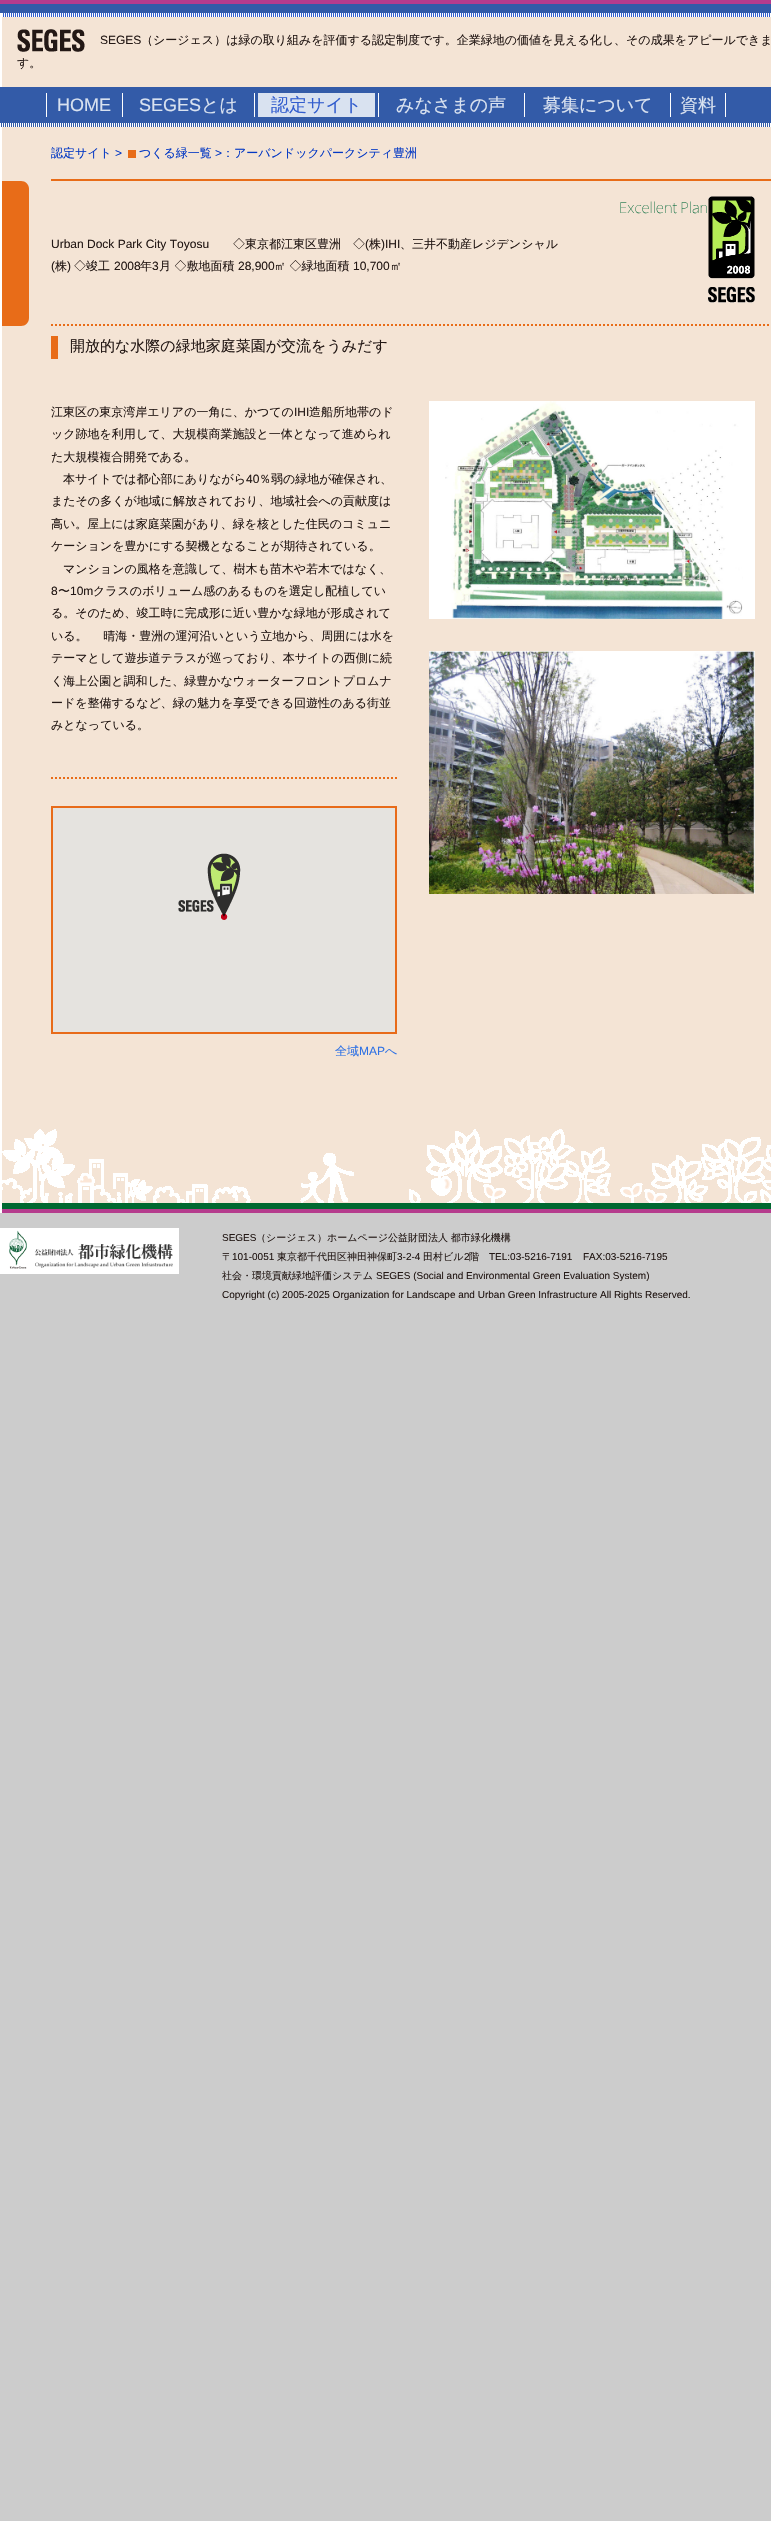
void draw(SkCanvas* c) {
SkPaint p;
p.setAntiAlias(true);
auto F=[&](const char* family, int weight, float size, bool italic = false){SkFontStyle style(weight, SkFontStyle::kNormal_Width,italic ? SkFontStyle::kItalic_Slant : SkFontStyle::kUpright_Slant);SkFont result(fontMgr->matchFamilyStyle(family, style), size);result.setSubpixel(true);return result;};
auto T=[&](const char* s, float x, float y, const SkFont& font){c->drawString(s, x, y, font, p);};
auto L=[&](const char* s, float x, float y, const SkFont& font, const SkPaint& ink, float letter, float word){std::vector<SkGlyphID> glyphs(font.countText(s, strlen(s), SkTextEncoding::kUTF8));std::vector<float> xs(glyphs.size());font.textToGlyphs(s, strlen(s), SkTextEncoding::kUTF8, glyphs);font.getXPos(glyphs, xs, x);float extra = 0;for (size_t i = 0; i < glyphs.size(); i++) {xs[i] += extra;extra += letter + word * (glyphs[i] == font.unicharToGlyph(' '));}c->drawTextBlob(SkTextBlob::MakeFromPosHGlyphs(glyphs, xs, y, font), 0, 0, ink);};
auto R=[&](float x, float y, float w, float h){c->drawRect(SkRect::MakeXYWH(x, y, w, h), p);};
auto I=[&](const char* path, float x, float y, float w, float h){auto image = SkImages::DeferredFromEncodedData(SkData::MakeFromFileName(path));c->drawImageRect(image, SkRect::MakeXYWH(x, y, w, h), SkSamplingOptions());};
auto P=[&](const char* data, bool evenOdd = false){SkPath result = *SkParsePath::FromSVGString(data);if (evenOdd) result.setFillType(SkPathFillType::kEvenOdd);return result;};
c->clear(0xffcccccc);
p.setColor(0xff335ba8);
R(0,4,771,123);
p.setColor(0xffb53b8d);
R(0,0,771,4);
p.setColor(0xff325dce);
R(0,13,771,4);
p.setStroke(true);
p.setStrokeWidth(1);
p.setColor(0xffffffff);
p.setPathEffect(SkDashPathEffect::Make({{1,1}}, 0));
c->drawPath(P("M0 13.5h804"),p);
p.setPathEffect(nullptr);
p.setPathEffect(SkDashPathEffect::Make({{1,1}}, 0));
c->drawPath(P("M0 14.5h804"),p);
p.setPathEffect(nullptr);
p.setStroke(false);
R(0,13,2,2);
p.setStroke(true);
p.setPathEffect(SkDashPathEffect::Make({{1,1}}, 0));
c->drawPath(P("M0 15.5h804"),p);
p.setPathEffect(nullptr);
p.setPathEffect(SkDashPathEffect::Make({{1,1}}, 0));
c->drawPath(P("M0 16.5h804"),p);
p.setPathEffect(nullptr);
p.setStroke(false);
R(0,15,2,72);
p.setColor(0xfff4e4d5);
R(2,17,769,70);
I("1.png",17,29,68,23);
auto f1 = F("Liberation Sans",400,12);
p.setColor(0xff231815);
T("SEGES",100,44,f1);
auto f2 = F("WenQuanYi Zen Hei",500,12);
T("（シージェス）は緑の取り組みを評価する認定制度です。企業緑地の価値を見える化し、その成果をアピールできま",141,44,f2);
T("す。",17,67,f2);
p.setColor(0xffffffff);
R(46,93,1,24);
auto f3 = F("Liberation Sans",400,18);
p.setColor(0xffd9e2f0);
T("HOME",57,111,f3);
p.setColor(0xffffffff);
R(122,93,1,24);
p.setColor(0xffd9e2f0);
T("SEGES",139,111,f3);
auto f4 = F("WenQuanYi Zen Hei",500,18);
T("とは",201,111,f4);
p.setColor(0xffffffff);
R(254,93,1,24);
p.setColor(0xffd9e2f0);
R(258,93,117,24);
p.setColor(0xff325dce);
T("認定サイト",271,111,f4);
p.setColor(0xffffffff);
R(378,93,1,24);
p.setColor(0xffd9e2f0);
T("みなさまの声",396,111,f4);
p.setColor(0xffffffff);
R(524,93,1,24);
p.setColor(0xffd9e2f0);
T("募集について",543,111,f4);
p.setColor(0xffffffff);
R(725,93,1,24);
R(670,93,1,24);
p.setColor(0xffd9e2f0);
T("資料",680,111,f4);
p.setStroke(true);
p.setColor(0xffffffff);
p.setPathEffect(SkDashPathEffect::Make({{1,1}}, 0));
c->drawPath(P("M0 123.5h771"),p);
p.setPathEffect(nullptr);
p.setPathEffect(SkDashPathEffect::Make({{1,1}}, 0));
c->drawPath(P("M0 124.5h771"),p);
p.setPathEffect(nullptr);
p.setPathEffect(SkDashPathEffect::Make({{1,1}}, 0));
c->drawPath(P("M0 125.5h771"),p);
p.setPathEffect(nullptr);
p.setPathEffect(SkDashPathEffect::Make({{1,1}}, 0));
c->drawPath(P("M0 126.5h771"),p);
p.setPathEffect(nullptr);
p.setStroke(false);
p.setColor(0xfff4e4d5);
R(2,127,769,1076);
p.setColor(0xffffffff);
R(0,127,2,1086);
p.setColor(0xffe86c18);
R(51,179,720,2);
p.setColor(0xff0338c4);
T("認定サイト",51,157,f2);
T(">",115,157,f1);
p.setColor(0xffe86c18);
R(128,150,8,8);
p.setColor(0xff0338c4);
T("つくる緑一覧",139,157,f2);
T(">",215,157,f1);
T("：アーバンドックパークシティ豊洲",222,157,f2);
p.setColor(0xffe86c18);
c->drawPath(P("M2 181h19c4.5 0 8 3.5 8 8v129c0 4.5-3.5 8-8 8h-19z"),p);
p.setStroke(true);
p.setStrokeWidth(2);
p.setPathEffect(SkDashPathEffect::Make({{2,2}}, 0));
c->drawPath(P("M51 325h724"),p);
p.setPathEffect(nullptr);
auto f5 = F("Noto Sans",400,20);
p.setStroke(false);
p.setColor(0xff231815);
T("アーバンドックパークシティ豊洲",51,212,f5);
T("Urban Dock Park City Toyosu",51,248,f1);
T("◇東京都江東区豊洲　◇",233,248,f2);
T("(",365,248,f1);
T("株",369,248,f2);
T(")IHI",381,248,f1);
T("、三井不動産レジデンシャル",400,248,f2);
T("(",51,270,f1);
T("株",55,270,f2);
T(")",67,270,f1);
T("◇竣工",74,270,f2);
T("2008",114,270,f1);
T("年",140,270,f2);
T("3",152,270,f1);
T("月 ◇敷地面積",159,270,f2);
T("28,900",238,270,f1);
T("㎡ ◇緑地面積",274,270,f2);
T("10,700",353,270,f1);
T("㎡",390,270,f2);
auto f6 = F("Noto Sans",100,15);
p.setColor(0xff006837);
L("Excellent Plan",619,213,f6,p,0,-1);
I("2.png",708,196,47,107);
p.setColor(0xffe86c18);
R(51,336,7,23);
auto f7 = F("WenQuanYi Zen Hei",500,15);
p.setColor(0xff231815);
T("開放的な水際の緑地家庭菜園が交流をうみだす",70,351,f7);
p.setStroke(true);
p.setColor(0xffe86c18);
p.setPathEffect(SkDashPathEffect::Make({{2,2}}, 0));
c->drawPath(P("M51 778h346"),p);
p.setPathEffect(nullptr);
p.setStroke(false);
p.setColor(0xff231815);
T("江東区の東京湾岸エリアの一角に、かつての",51,416,f2);
T("IHI",294,416,f1);
T("造船所地帯のド",309,416,f2);
T("ック跡地を利用して、大規模商業施設と一体となって進められ",51,438,f2);
T("た大規模複合開発である。",51,461,f2);
T("本サイトでは都心部にありながら",63,483,f2);
T("40",246,483,f1);
T("％弱の緑地が確保され、",259,483,f2);
T("またその多くが地域に解放されており、地域社会への貢献度は",51,505,f2);
T("高い。屋上には家庭菜園があり、緑を核とした住民のコミュニ",51,528,f2);
T("ケーションを豊かにする契機となることが期待されている。",51,550,f2);
T("マンションの風格を意識して、樹木も苗木や若木ではなく、",63,573,f2);
T("8",51,595,f1);
T("〜",58,595,f2);
T("10m",70,595,f1);
T("クラスのボリューム感のあるものを選定し配植してい",93,595,f2);
T("る。そのため、竣工時に完成形に近い豊かな緑地が形成されて",51,617,f2);
T("いる。 　晴海・豊洲の運河沿いという立地から、周囲には水を",51,640,f2);
T("テーマとして遊歩道テラスが巡っており、本サイトの西側に続",51,662,f2);
T("く海上公園と調和した、緑豊かなウォーターフロントプロムナ",51,685,f2);
T("ードを整備するなど、緑の魅力を享受できる回遊性のある街並",51,707,f2);
T("みとなっている。",51,729,f2);
p.setStroke(true);
p.setColor(0xffe86b19);
c->drawRect(SkRect::MakeXYWH(52,807,344,226),p);
p.setStroke(false);
p.setColor(0xffe5e3df);
R(53,808,342,224);
I("3.png",178,853,63,67);
p.setColor(0xff2f72e5);
T("全域",335,1055,f2);
T("MAP",359,1055,f1);
T("へ",385,1055,f2);
p.setColor(0xffffffff);
R(429,401,326,218);
I("4.png",445,401,298,218);
I("5.png",429,651,326,243);
p.setColor(0xffb53c8d);
R(2,1209,769,4);
I("6.png",2,1129,769,80);
I("7.png",0,1228,179,46);
auto f8 = F("Liberation Sans",400,10);
p.setColor(0xff231815);
T("SEGES",222,1241,f8);
auto f9 = F("WenQuanYi Zen Hei",500,10);
T("（シージェス）ホームページ公益財団法人 都市緑化機構",256,1241,f9);
T("〒",222,1260,f9);
T("101-0051",232,1260,f8);
T("東京都千代田区神田神保町",277,1260,f9);
T("3-2-4",397,1260,f8);
T("田村ビル",423,1260,f9);
T("2",464,1260,f8);
T("階",469,1260,f9);
T("TEL:03-5216-7191",489,1260,f8);
T("FAX:03-5216-7195",583,1260,f8);
T("社会・環境貢献緑地評価システム",222,1279,f9);
T("SEGES (Social and Environmental Green Evaluation System)",376,1279,f8);
T("Copyright (c) 2005-2025 Organization for Landscape and Urban Green Infrastructure All Rights Reserved.",222,1298,f8);
}
